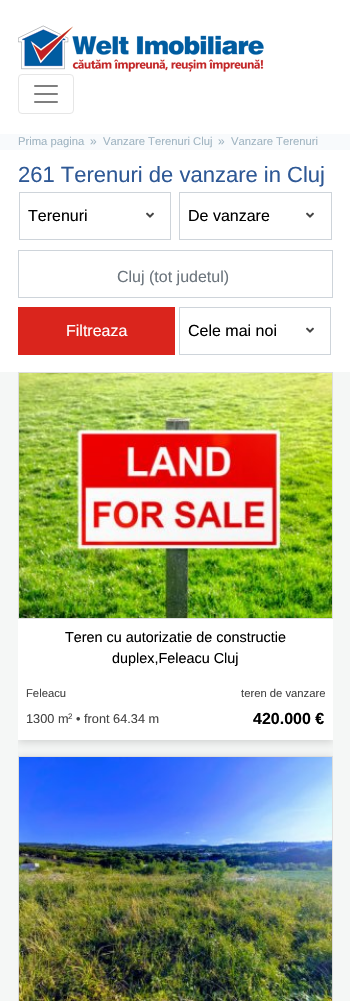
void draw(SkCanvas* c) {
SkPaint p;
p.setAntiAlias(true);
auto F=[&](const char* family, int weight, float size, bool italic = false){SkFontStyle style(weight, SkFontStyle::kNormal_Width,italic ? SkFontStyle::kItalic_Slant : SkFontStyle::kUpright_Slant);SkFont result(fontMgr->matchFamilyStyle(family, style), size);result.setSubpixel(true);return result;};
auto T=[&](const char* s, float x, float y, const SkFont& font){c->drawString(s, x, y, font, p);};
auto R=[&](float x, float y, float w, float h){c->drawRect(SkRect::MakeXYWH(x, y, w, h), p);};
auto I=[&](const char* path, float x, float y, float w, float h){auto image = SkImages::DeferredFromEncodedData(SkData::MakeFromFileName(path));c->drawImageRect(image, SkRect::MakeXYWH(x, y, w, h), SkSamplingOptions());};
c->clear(0xfff5f7f6);
p.setColor(0xffffffff);
R(0,0,350,134);
I("1.png",18,25,246,47);
p.setStroke(true);
p.setStrokeWidth(1);
p.setColor(0xffe6e6e6);
c->drawRoundRect(SkRect::MakeXYWH(18.5,74.5,55,39),3.5,3.5,p);
I("2.png",34,85,24,18);
p.setStroke(false);
p.setColor(0xfff8fafc);
R(0,134,350,16);
auto f1 = F("Liberation Sans",400,11.25);
p.setColor(0xffa1b5c2);
T("Prima pagina",18,145,f1);
auto f2 = F("Liberation Sans",400,12);
T("»",90,145,f2);
T("Vanzare Terenuri Cluj",103,145,f1);
T("»",218,145,f2);
T("Vanzare Terenuri",231,145,f1);
p.setColor(0xffffffff);
R(0,150,350,222);
auto f3 = F("Liberation Sans",400,22);
p.setColor(0xff2e5895);
T("261 Terenuri de vanzare in Cluj",18,182,f3);
p.setStroke(true);
p.setColor(0xffced4da);
c->drawRect(SkRect::MakeXYWH(19.5,192.5,151,47),p);
auto f4 = F("Liberation Sans",400,16);
p.setStroke(false);
p.setColor(0xff000000);
T("Terenuri",28,221,f4);
I("3.png",146,212,8,6);
p.setStroke(true);
p.setColor(0xffced4da);
c->drawRect(SkRect::MakeXYWH(179.5,192.5,152,47),p);
p.setStroke(false);
p.setColor(0xff000000);
T("De vanzare",188,221,f4);
I("3.png",306,212,8,6);
p.setStroke(true);
p.setColor(0xffced4da);
c->drawRect(SkRect::MakeXYWH(18.5,250.5,314,47),p);
p.setStroke(false);
p.setColor(0xff6c757d);
T("Cluj (tot judetul)",117,282,f4);
p.setColor(0xffda251d);
R(18,307,157,48);
p.setColor(0xffffffff);
T("Filtreaza",66,336,f4);
p.setStroke(true);
p.setColor(0xffced4da);
c->drawRect(SkRect::MakeXYWH(179.5,307.5,151,47),p);
p.setStroke(false);
p.setColor(0xff000000);
T("Cele mai noi",188,336,f4);
I("3.png",306,327,8,6);
c->save();
c->clipRect(SkRect::MakeXYWH(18,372,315,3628));
p.setColor(0x29000000);
p.setMaskFilter(SkMaskFilter::MakeBlur(kNormal_SkBlurStyle, 4));
c->drawRect(SkRect::MakeXYWH(18,374,315,368),p);
p.setMaskFilter(nullptr);
c->restore();
p.setColor(0xffffffff);
R(18,619,315,121);
p.setStroke(true);
p.setColor(0xffdedede);
c->drawRect(SkRect::MakeXYWH(18.5,372.5,314,246),p);
I("4.png",19,373,313,245);
auto f5 = F("Liberation Sans",400,14.4);
p.setStroke(false);
p.setColor(0xff000000);
T("Teren cu autorizatie de constructie",65,642,f5);
T("duplex,Feleacu Cluj",112,663,f5);
p.setColor(0xff444444);
T("Feleacu",26,697,f1);
T("teren de vanzare",241,697,f1);
auto f6 = F("Liberation Sans",400,12.75);
T("1300 m",26,723,f6);
auto f7 = F("Liberation Sans",400,8);
T("2",68,719,f7);
T("• front 64.34 m",76,723,f6);
auto f8 = F("Liberation Sans",700,16);
p.setColor(0xff000000);
T("420.000 €",253,724,f8);
c->save();
c->clipRect(SkRect::MakeXYWH(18,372,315,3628));
p.setColor(0x29000000);
p.setMaskFilter(SkMaskFilter::MakeBlur(kNormal_SkBlurStyle, 4));
c->drawRect(SkRect::MakeXYWH(18,758,315,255),p);
p.setMaskFilter(nullptr);
c->restore();
p.setStroke(true);
p.setColor(0xffdedede);
c->drawRect(SkRect::MakeXYWH(18.5,756.5,314,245),p);
I("5.png",19,757,313,244);
}
